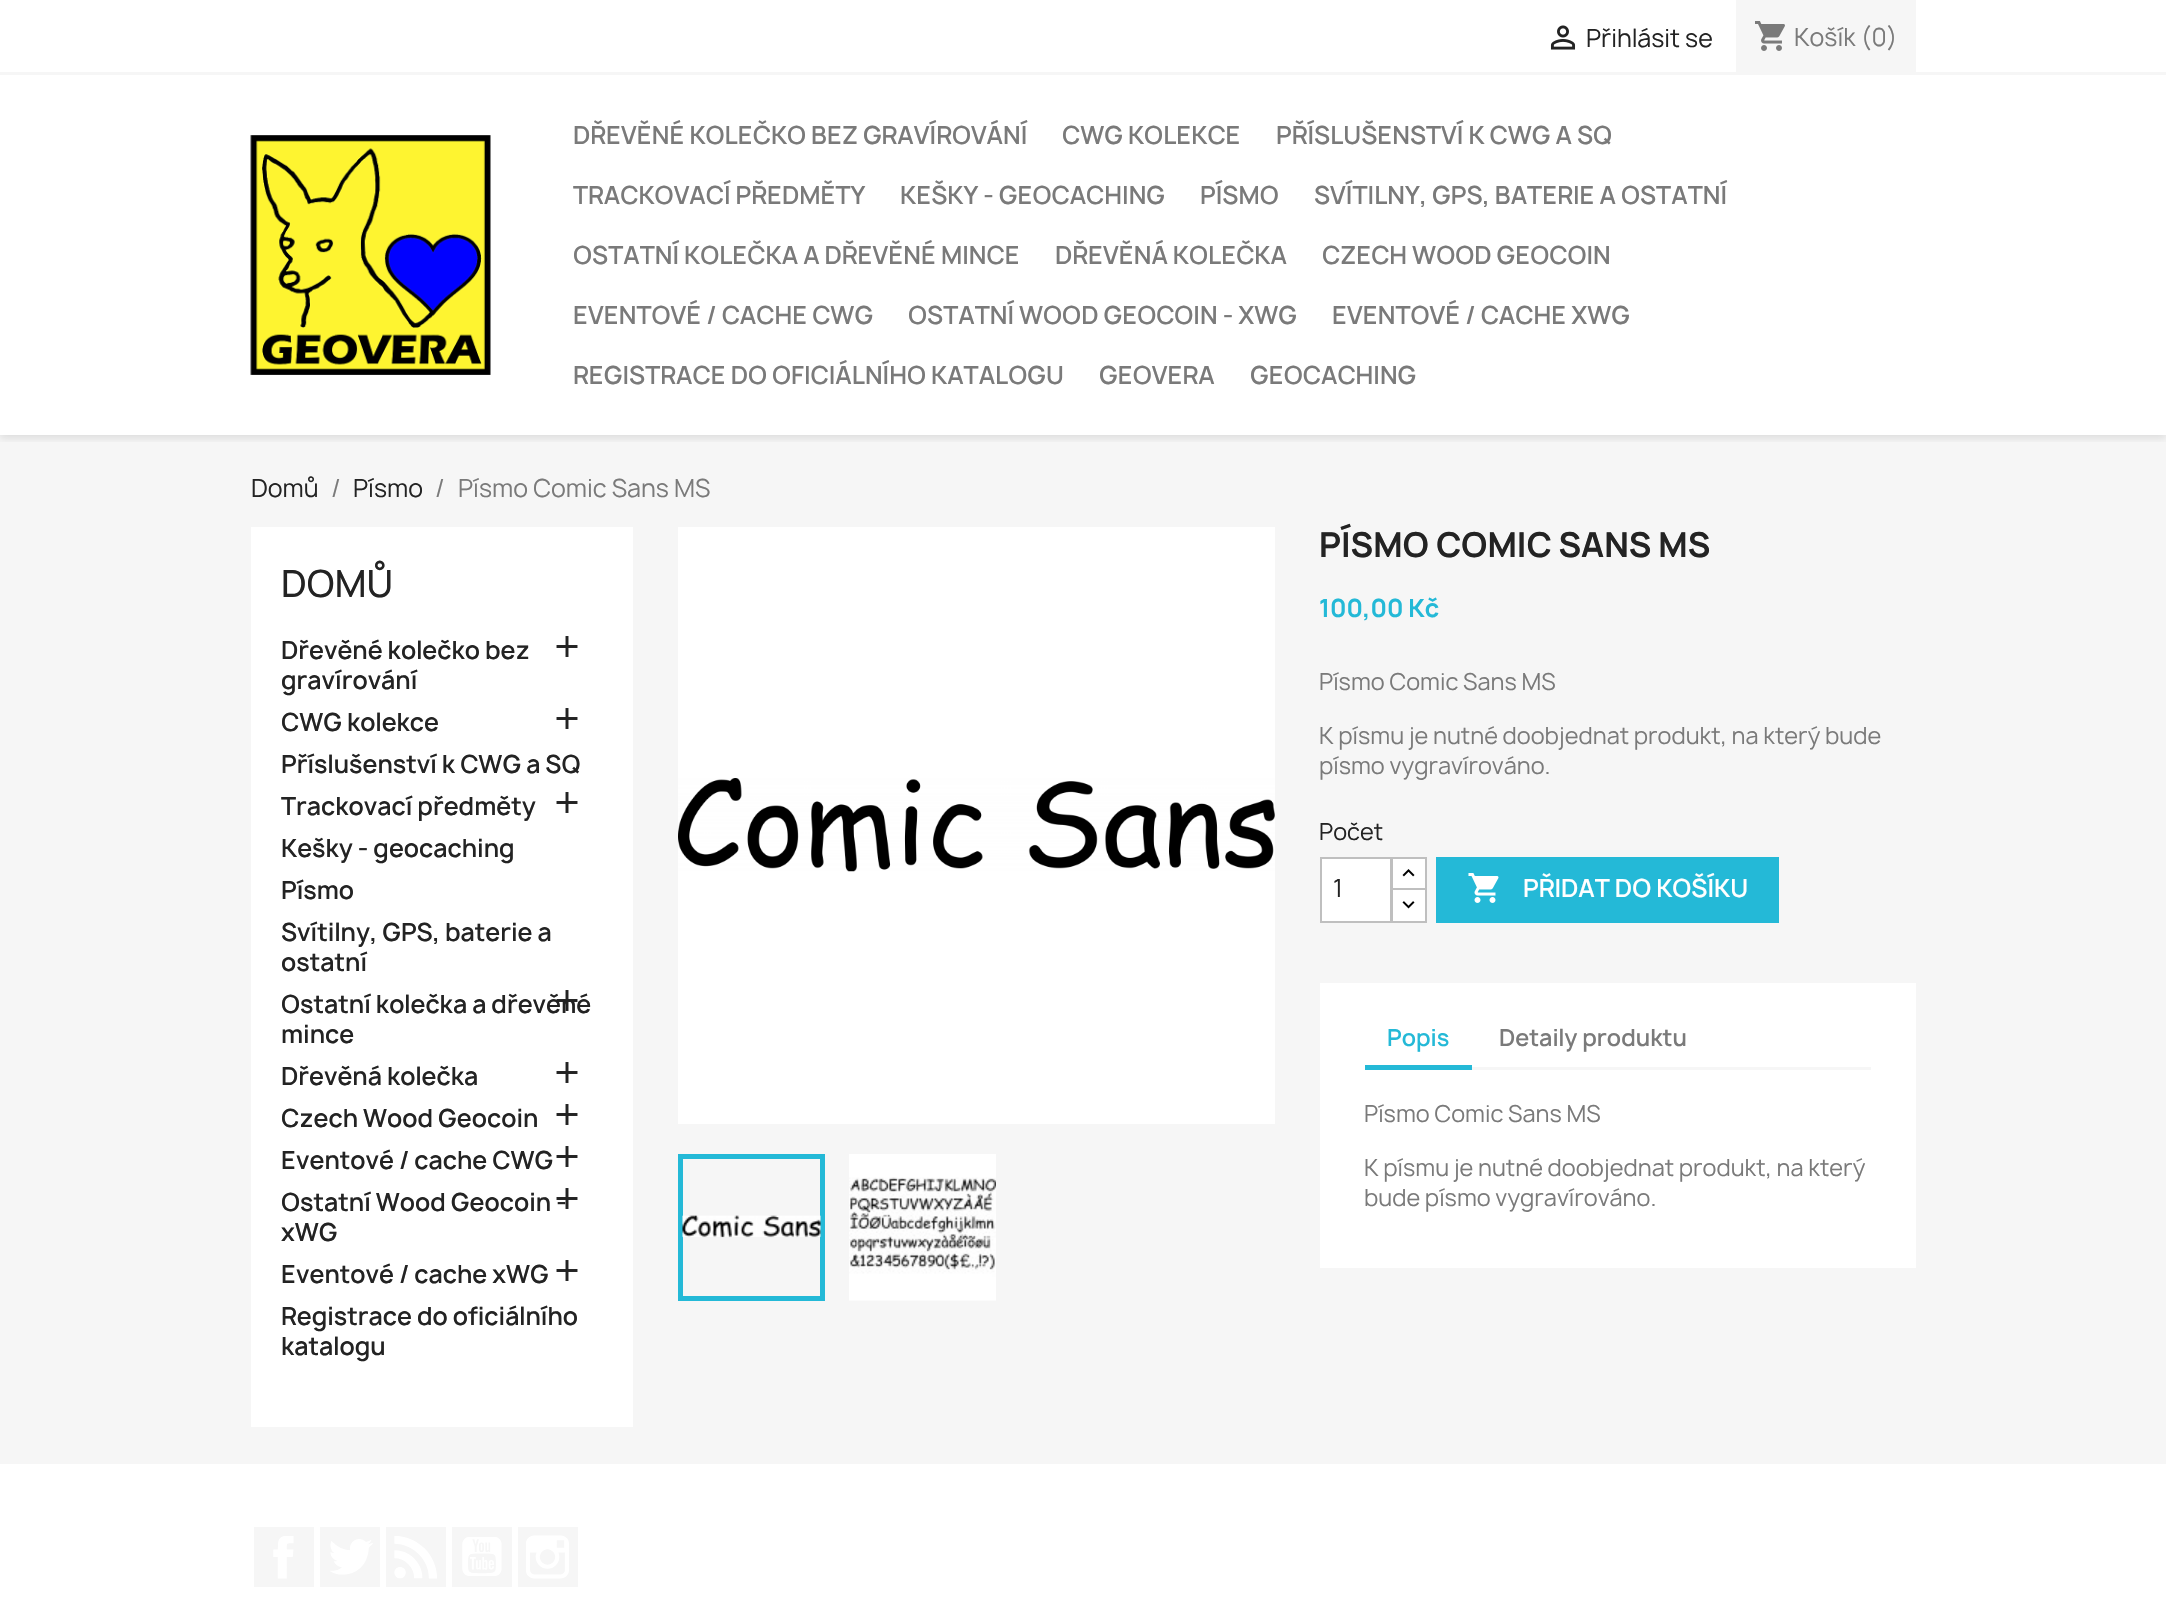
void draw(SkCanvas* c) {
SkPaint p;
p.setAntiAlias(true);
auto F=[&](const char* family, int weight, float size, bool italic = false){SkFontStyle style(weight, SkFontStyle::kNormal_Width,italic ? SkFontStyle::kItalic_Slant : SkFontStyle::kUpright_Slant);SkFont result(fontMgr->matchFamilyStyle(family, style), size);result.setSubpixel(true);return result;};
auto T=[&](const char* s, float x, float y, const SkFont& font){c->drawString(s, x, y, font, p);};
auto R=[&](float x, float y, float w, float h){c->drawRect(SkRect::MakeXYWH(x, y, w, h), p);};
auto I=[&](const char* path, float x, float y, float w, float h){auto image = SkImages::DeferredFromEncodedData(SkData::MakeFromFileName(path));c->drawImageRect(image, SkRect::MakeXYWH(x, y, w, h), SkSamplingOptions());};
c->clear(0xffffffff);
p.setColor(0xfff6f6f6);
R(0,435,2166,1029);
c->save();
c->clipRect(SkRect::MakeXYWH(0,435,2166,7));
p.setColor(0x1c000000);
p.setMaskFilter(SkMaskFilter::MakeBlur(kNormal_SkBlurStyle, 4));
c->drawRect(SkRect::MakeXYWH(0,3,2166,435),p);
p.setMaskFilter(nullptr);
c->restore();
p.setColor(0xfff6f6f6);
R(0,72,2166,3);
I("1.png",1550,25,26,25);
auto f1 = F("Manrope",400,24);
p.setColor(0xff232323);
T("Přihlásit se",1586,47,f1);
p.setColor(0xfff6f6f6);
R(1736,0,180,72);
I("2.png",1755,21,30,30);
p.setColor(0xff7a7a7a);
T("Košík (0)",1794,46,f1);
I("3.png",250,135,241,240);
auto f2 = F("Manrope",600,24);
T("DŘEVĚNÉ KOLEČKO BEZ GRAVÍROVÁNÍ",573,144,f2);
T("CWG KOLEKCE",1062,144,f2);
T("PŘÍSLUŠENSTVÍ K CWG A SQ",1276,144,f2);
T("TRACKOVACÍ PŘEDMĚTY",573,204,f2);
T("KEŠKY - GEOCACHING",900,204,f2);
T("PÍSMO",1200,204,f2);
T("SVÍTILNY, GPS, BATERIE A OSTATNÍ",1314,204,f2);
T("OSTATNÍ KOLEČKA A DŘEVĚNÉ MINCE",573,264,f2);
T("DŘEVĚNÁ KOLEČKA",1055,264,f2);
T("CZECH WOOD GEOCOIN",1322,264,f2);
T("EVENTOVÉ / CACHE CWG",573,324,f2);
T("OSTATNÍ WOOD GEOCOIN - XWG",908,324,f2);
T("EVENTOVÉ / CACHE XWG",1332,324,f2);
T("REGISTRACE DO OFICIÁLNÍHO KATALOGU",573,384,f2);
T("GEOVERA",1099,384,f2);
T("GEOCACHING",1250,384,f2);
p.setColor(0xff232323);
T("Domů",251,497,f1);
p.setColor(0xff7a7a7a);
T("/",331,497,f1);
p.setColor(0xff232323);
T("Písmo",353,497,f1);
p.setColor(0xff7a7a7a);
T("/",435,497,f1);
T("Písmo Comic Sans MS",458,497,f1);
p.setColor(0xffffffff);
R(251,527,382,900);
auto f3 = F("Manrope",500,36);
p.setColor(0xff232323);
T("DOMŮ",281,597,f3);
T("Dřevěné kolečko bez",281,659,f2);
T("gravírování",281,689,f2);
I("4.png",556,636,22,21);
T("CWG kolekce",281,731,f2);
I("4.png",556,708,22,21);
T("Příslušenství k CWG a SQ",281,773,f2);
T("Trackovací předměty",281,815,f2);
I("4.png",556,792,22,21);
T("Kešky - geocaching",281,857,f2);
T("Písmo",281,899,f2);
T("Svítilny, GPS, baterie a",281,941,f2);
T("ostatní",281,971,f2);
T("Ostatní kolečka a dřevěné",281,1013,f2);
I("5.png",556,990,22,21);
T("mince",281,1043,f2);
T("Dřevěná kolečka",281,1085,f2);
I("4.png",556,1062,22,21);
T("Czech Wood Geocoin",281,1127,f2);
I("4.png",556,1104,22,21);
T("Eventové / cache CWG",281,1169,f2);
I("4.png",556,1146,22,21);
T("Ostatní Wood Geocoin -",281,1211,f2);
T("xWG",281,1241,f2);
I("6.png",556,1188,22,21);
T("Eventové / cache xWG",281,1283,f2);
I("4.png",556,1260,22,21);
T("Registrace do oficiálního",281,1325,f2);
T("katalogu",281,1355,f2);
p.setColor(0xffffffff);
R(678,527,597,597);
I("7.png",678,778,597,94);
p.setStroke(true);
p.setStrokeWidth(5);
p.setColor(0xff24b9d7);
c->drawRect(SkRect::MakeXYWH(680.5,1156.5,142,142),p);
I("8.png",849,1154,147,147);
I("9.png",682,1215,139,23);
auto f4 = F("Manrope",700,33);
p.setStroke(false);
p.setColor(0xff232323);
T("PÍSMO COMIC SANS MS",1319,557,f4);
auto f5 = F("Manrope",700,24);
p.setColor(0xff24b9d7);
T("100,00 Kč",1319,617,f5);
auto f6 = F("Manrope",400,22.5);
p.setColor(0xff7a7a7a);
T("Písmo Comic Sans MS",1319,690,f6);
T("K písmu je nutné doobjednat produkt, na který bude",1319,744,f6);
T("písmo vygravírováno.",1319,774,f6);
p.setColor(0xff232323);
T("Počet",1319,840,f6);
p.setColor(0xffffffff);
R(1393,859,32,29);
p.setStroke(true);
p.setStrokeWidth(2);
p.setColor(0xffbfbfbf);
c->drawRect(SkRect::MakeXYWH(1392,858,34,32),p);
p.setStroke(false);
p.setColor(0xffffffff);
c->drawRect(SkRect::MakeXYWH(1392,889,34,33),p);
p.setStroke(true);
p.setColor(0xffbfbfbf);
c->drawRect(SkRect::MakeXYWH(1392,889,34,33),p);
p.setStroke(false);
p.setColor(0xffffffff);
c->drawRect(SkRect::MakeXYWH(1321,858,70,64),p);
p.setStroke(true);
p.setColor(0xffbfbfbf);
c->drawRect(SkRect::MakeXYWH(1321,858,70,64),p);
p.setStroke(false);
p.setColor(0xff232323);
T("1",1333,897,f1);
I("10.png",1402,869,13,8);
I("11.png",1402,901,13,8);
p.setColor(0xff24b9d7);
R(1436,857,343,66);
I("12.png",1468,873,31,30);
p.setColor(0xffffffff);
T("PŘIDAT DO KOŠÍKU",1523,897,f2);
R(1320,983,596,285);
p.setColor(0xfff6f6f6);
R(1472,1067,399,3);
p.setColor(0xff24b9d7);
R(1365,1065,107,5);
auto f7 = F("Manrope",600,22.5);
T("Popis",1387,1046,f7);
p.setColor(0xff7a7a7a);
T("Detaily produktu",1499,1046,f7);
T("Písmo Comic Sans MS",1364,1122,f6);
T("K písmu je nutné doobjednat produkt, na který",1364,1176,f6);
T("bude písmo vygravírováno.",1364,1206,f6);
p.setColor(0xfff6f6f6);
R(254,1527,60,60);
I("13.png",273,1536,21,43);
R(320,1527,60,60);
I("14.png",330,1539,43,36);
R(386,1527,60,60);
I("15.png",394,1536,43,43);
R(452,1527,60,60);
I("16.png",462,1537,40,39);
R(518,1527,60,60);
I("17.png",526,1535,43,44);
}
